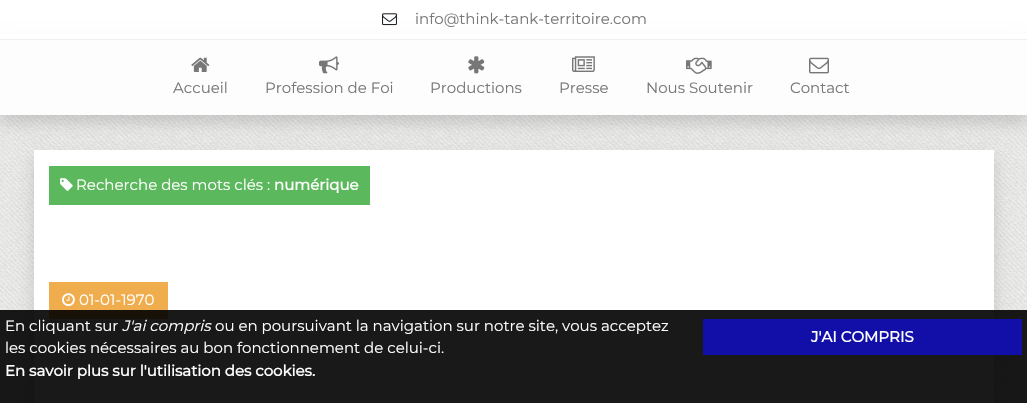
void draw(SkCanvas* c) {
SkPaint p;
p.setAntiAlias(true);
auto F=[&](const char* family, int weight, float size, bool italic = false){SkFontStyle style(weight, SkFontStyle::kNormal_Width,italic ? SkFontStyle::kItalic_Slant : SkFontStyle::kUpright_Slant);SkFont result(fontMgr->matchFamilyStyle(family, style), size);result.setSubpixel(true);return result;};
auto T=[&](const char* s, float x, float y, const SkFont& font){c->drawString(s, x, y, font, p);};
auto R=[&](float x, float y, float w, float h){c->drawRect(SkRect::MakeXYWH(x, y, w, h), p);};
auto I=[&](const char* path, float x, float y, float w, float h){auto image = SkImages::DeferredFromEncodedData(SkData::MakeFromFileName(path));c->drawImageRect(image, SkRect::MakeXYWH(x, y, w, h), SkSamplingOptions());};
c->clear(0xffffffff);
I("1.png",0,115,1027,288);
p.setColor(0x26000000);
p.setMaskFilter(SkMaskFilter::MakeBlur(kNormal_SkBlurStyle, 8));
c->drawRect(SkRect::MakeXYWH(0,46,1027,77),p);
p.setMaskFilter(nullptr);
p.setColor(0xffffffff);
R(0,34,1027,5);
p.setColor(0xffefefef);
R(0,39,1027,1);
I("2.png",382,13,15,13);
auto f1 = F("Montserrat",100,15);
p.setColor(0xff777777);
T("info@think-tank-territoire.com",415,24,f1);
p.setColor(0xfffdfdfd);
R(0,40,1027,75);
I("3.png",191,57,19,15);
p.setColor(0xff777777);
T("Accueil",173,93,f1);
I("4.png",319,56,20,18);
T("Profession de Foi",265,93,f1);
I("5.png",468,56,17,18);
T("Productions",430,93,f1);
I("6.png",572,56,23,16);
T("Presse",559,93,f1);
I("7.png",686,57,26,17);
T("Nous Soutenir",646,93,f1);
I("8.png",809,57,20,17);
T("Contact",790,93,f1);
p.setColor(0x26000000);
p.setMaskFilter(SkMaskFilter::MakeBlur(kNormal_SkBlurStyle, 8));
c->drawRect(SkRect::MakeXYWH(34,158,960,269),p);
p.setMaskFilter(nullptr);
p.setColor(0xffffffff);
R(34,150,960,253);
p.setColor(0xff5cb85c);
R(49,166,321,39);
I("9.png",60,178,13,13);
p.setColor(0xffffffff);
T("Recherche des mots clés :",76,190,f1);
auto f2 = F("Montserrat",700,15);
T("numérique",274,190,f2);
p.setColor(0xfff0ad4e);
R(49,282,119,37);
I("10.png",62,293,13,14);
p.setColor(0xffffffff);
T("01-01-1970",79,305,f1);
p.setColor(0xe6000000);
R(0,310,1027,93);
p.setColor(0xffffffff);
T("En cliquant sur",5,331,f1);
auto f3 = F("Montserrat",100,15,true);
T("J'ai compris",122,331,f3);
T("ou en poursuivant la navigation sur notre site, vous acceptez",215,331,f1);
T("les cookies nécessaires au bon fonctionnement de celui-ci.",5,353,f1);
T("En savoir plus sur l'utilisation des cookies.",5,376,f2);
p.setColor(0xff110fa7);
R(703,319,319,36);
p.setColor(0xffffffff);
T("J'AI COMPRIS",811,342,f2);
}
